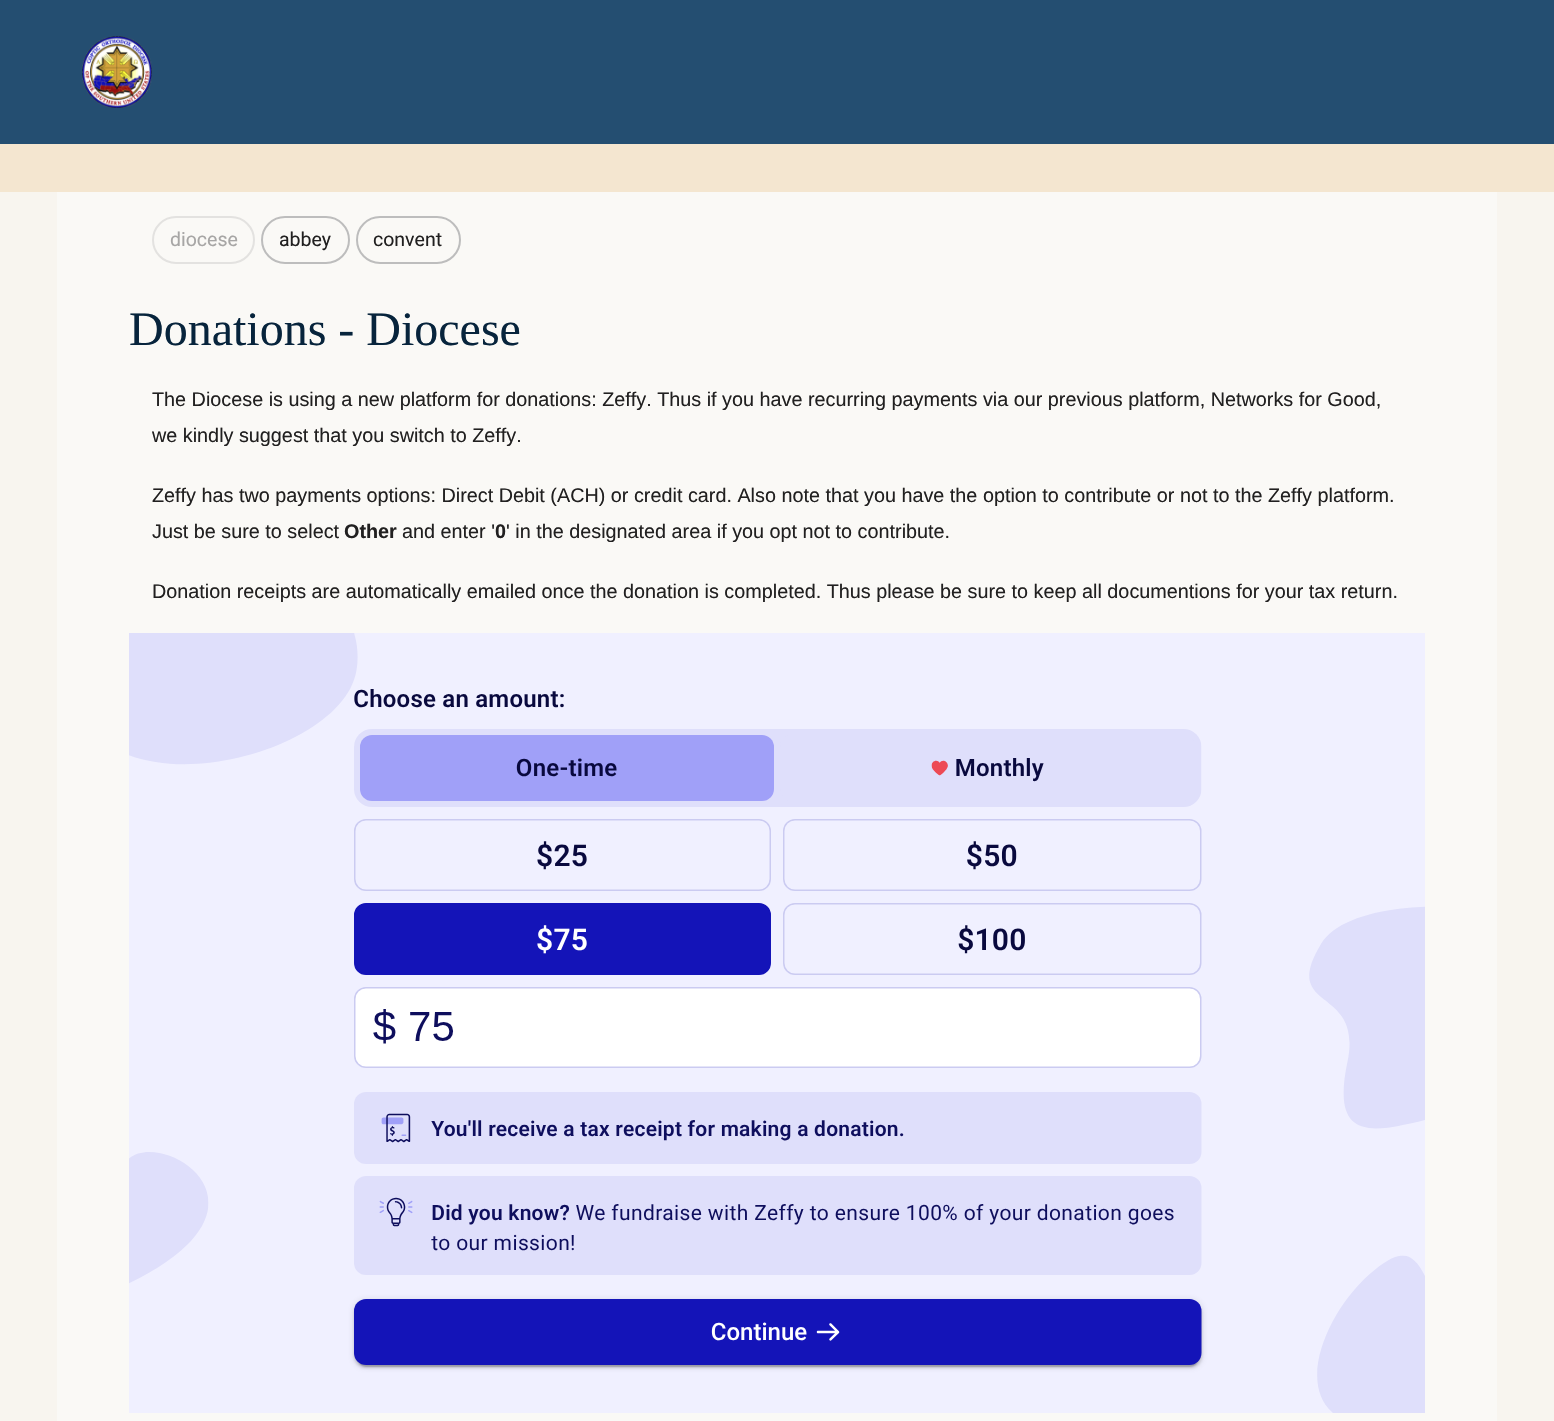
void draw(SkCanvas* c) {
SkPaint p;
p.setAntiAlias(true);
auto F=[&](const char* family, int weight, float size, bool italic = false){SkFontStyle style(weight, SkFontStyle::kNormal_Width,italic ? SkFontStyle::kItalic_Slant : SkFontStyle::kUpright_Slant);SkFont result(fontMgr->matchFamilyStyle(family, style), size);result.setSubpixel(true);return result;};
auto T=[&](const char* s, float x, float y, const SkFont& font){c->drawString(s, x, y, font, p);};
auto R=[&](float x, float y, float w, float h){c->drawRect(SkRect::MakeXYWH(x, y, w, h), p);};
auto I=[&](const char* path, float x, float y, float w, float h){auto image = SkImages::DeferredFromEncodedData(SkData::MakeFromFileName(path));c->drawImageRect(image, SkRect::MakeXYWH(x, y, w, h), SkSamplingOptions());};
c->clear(0xfff8f5ef);
p.setColor(0xff244e71);
R(0,0,1554,144);
I("1.png",82,36,70,72);
p.setColor(0xfff4e6d0);
R(0,144,1554,48);
p.setColor(0xfffaf9f6);
R(57,192,1440,1229);
p.setStroke(true);
p.setStrokeWidth(2);
p.setColor(0xffe3e2e0);
c->drawRoundRect(SkRect::MakeXYWH(153,217,101,46),23,23,p);
auto f1 = F("Roboto",400,19.5);
p.setStroke(false);
p.setColor(0xffa7a6a5);
T("diocese",170,246,f1);
p.setStroke(true);
p.setColor(0xffbdbdbd);
c->drawRoundRect(SkRect::MakeXYWH(262,217,87,46),23,23,p);
p.setStroke(false);
p.setColor(0xff212020);
T("abbey",279,246,f1);
p.setStroke(true);
p.setColor(0xffbdbdbd);
c->drawRoundRect(SkRect::MakeXYWH(357,217,103,46),23,23,p);
p.setStroke(false);
p.setColor(0xff212020);
T("convent",373,246,f1);
auto f2 = F("Liberation Serif",400,48);
p.setColor(0xff07243c);
T("Donations - Diocese",129,345,f2);
auto f3 = F("Liberation Sans",400,19.8);
p.setColor(0xff212020);
T("The Diocese is using a new platform for donations: Zeffy. Thus if you have recurring payments via our previous platform, Networks for Good,",152,406,f3);
T("we kindly suggest that you switch to Zeffy.",152,442,f3);
T("Zeffy has two payments options: Direct Debit (ACH) or credit card. Also note that you have the option to contribute or not to the Zeffy platform.",152,502,f3);
T("Just be sure to select",152,538,f3);
auto f4 = F("Liberation Sans",700,19.8);
T("Other",344,538,f4);
T("and enter '",402,538,f3);
T("0",495,538,f4);
T("' in the designated area if you opt not to contribute.",506,538,f3);
T("Donation receipts are automatically emailed once the donation is completed. Thus please be sure to keep all documentions for your tax return.",152,598,f3);
I("2.png",129,633,1296,780);
}
